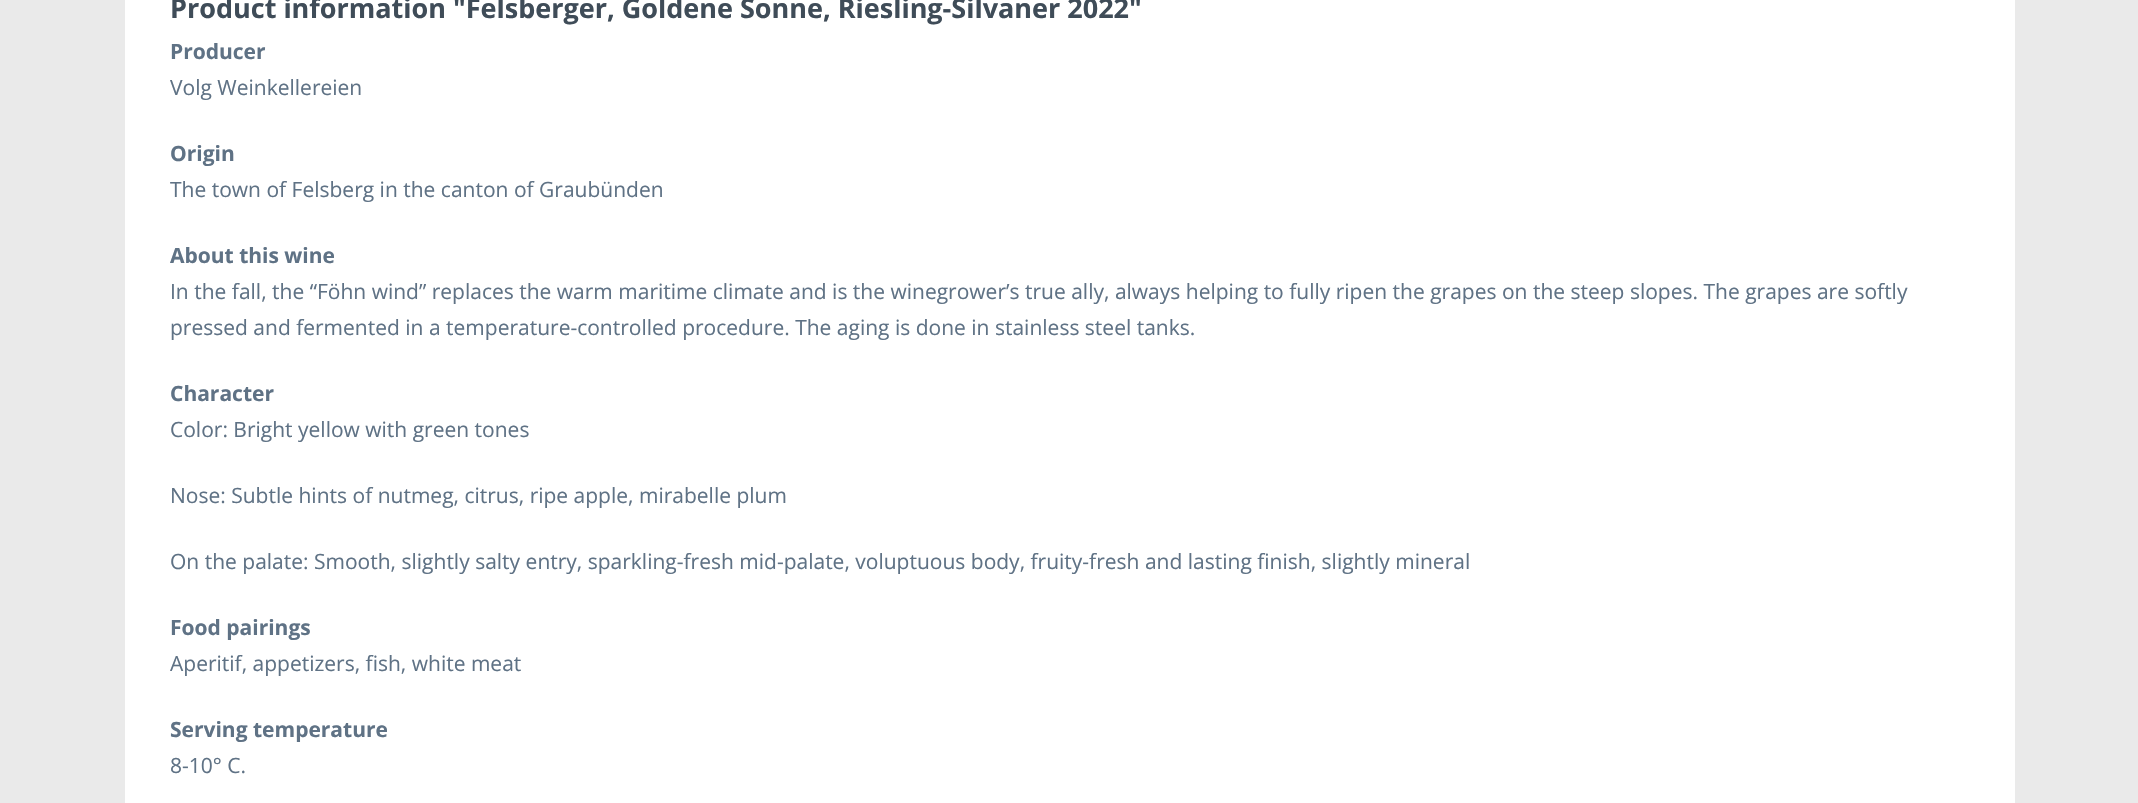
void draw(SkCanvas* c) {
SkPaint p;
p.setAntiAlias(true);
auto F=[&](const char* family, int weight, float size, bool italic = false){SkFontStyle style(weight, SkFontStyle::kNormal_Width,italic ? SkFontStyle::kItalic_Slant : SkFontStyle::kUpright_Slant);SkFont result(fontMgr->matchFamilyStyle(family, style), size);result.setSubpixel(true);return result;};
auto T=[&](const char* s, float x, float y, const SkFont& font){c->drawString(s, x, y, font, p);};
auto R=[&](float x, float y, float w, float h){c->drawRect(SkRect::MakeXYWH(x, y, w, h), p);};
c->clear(0xffeaeaea);
p.setColor(0xffffffff);
R(125,0,1890,803);
auto f1 = F("Open Sans",700,27);
p.setColor(0xff3f4c58);
T("Product information \"Felsberger, Goldene Sonne, Riesling-Silvaner 2022\"",170,18,f1);
auto f2 = F("Open Sans",700,21);
p.setColor(0xff5f7285);
T("Producer",170,59,f2);
auto f3 = F("Open Sans",400,21);
T("Volg Weinkellereien",170,95,f3);
T("Origin",170,161,f2);
T("The town of Felsberg in the canton of Graubünden",170,197,f3);
T("About this wine",170,263,f2);
T("In the fall, the “Föhn wind” replaces the warm maritime climate and is the winegrower’s true ally, always helping to fully ripen the grapes on the steep slopes. The grapes are softly",170,299,f3);
T("pressed and fermented in a temperature-controlled procedure. The aging is done in stainless steel tanks.",170,335,f3);
T("Character",170,401,f2);
T("Color: Bright yellow with green tones",170,437,f3);
T("Nose: Subtle hints of nutmeg, citrus, ripe apple, mirabelle plum",170,503,f3);
T("On the palate: Smooth, slightly salty entry, sparkling-fresh mid-palate, voluptuous body, fruity-fresh and lasting finish, slightly mineral",170,569,f3);
T("Food pairings",170,635,f2);
T("Aperitif, appetizers, fish, white meat",170,671,f3);
T("Serving temperature",170,737,f2);
T("8-10° C.",170,773,f3);
}
